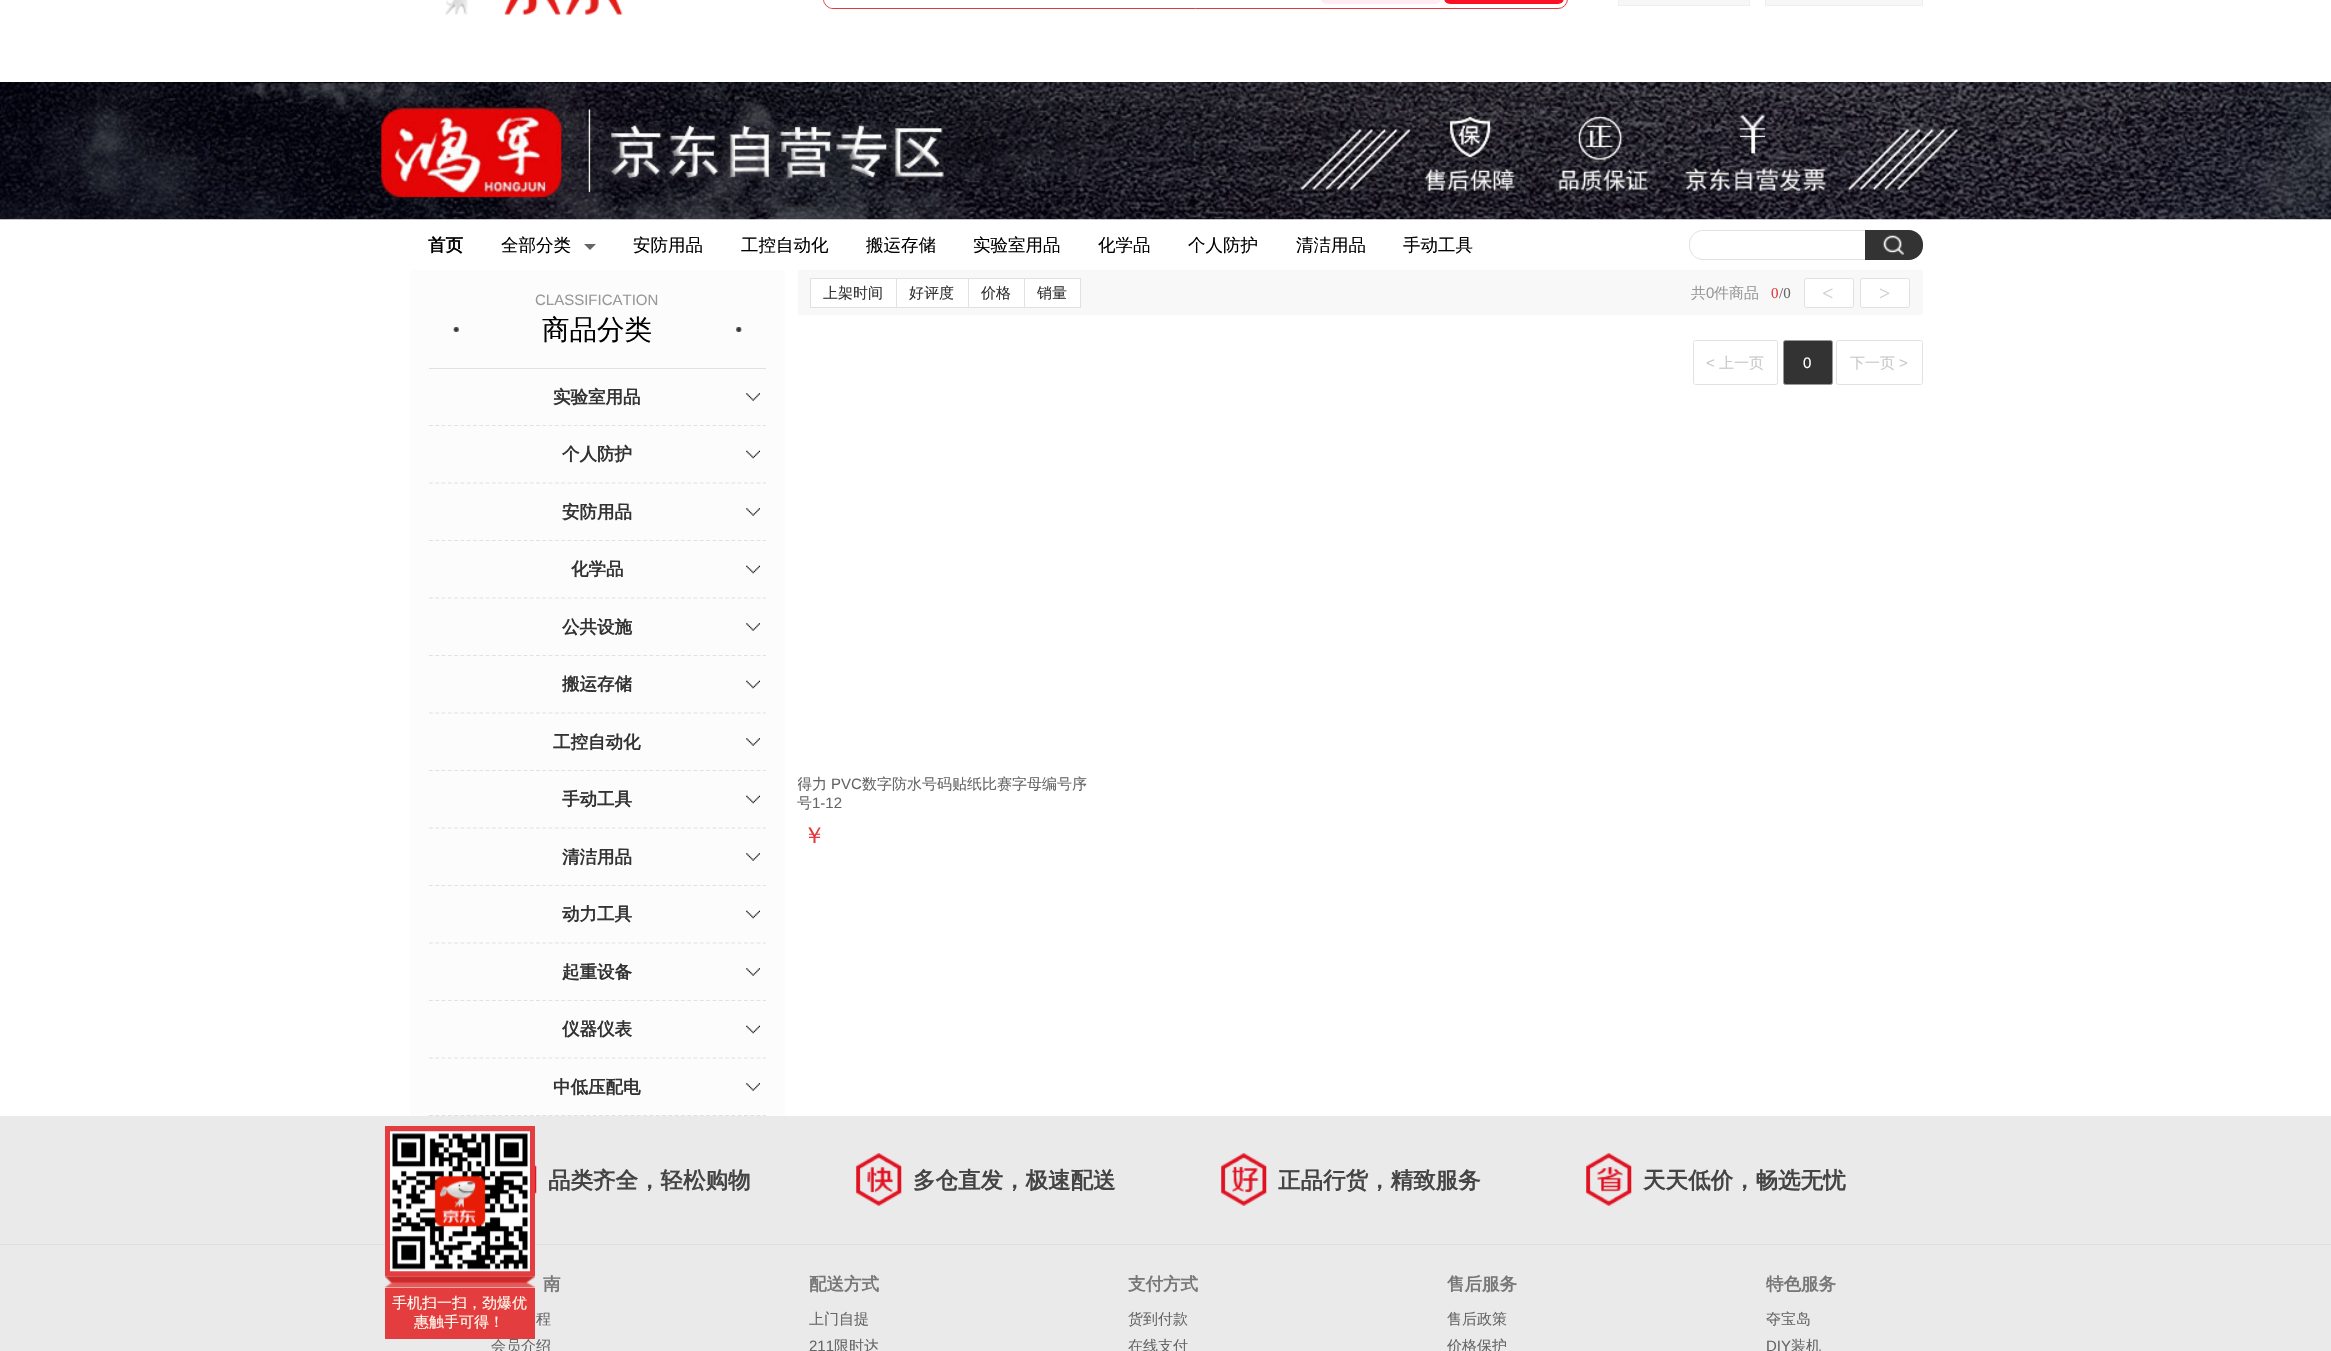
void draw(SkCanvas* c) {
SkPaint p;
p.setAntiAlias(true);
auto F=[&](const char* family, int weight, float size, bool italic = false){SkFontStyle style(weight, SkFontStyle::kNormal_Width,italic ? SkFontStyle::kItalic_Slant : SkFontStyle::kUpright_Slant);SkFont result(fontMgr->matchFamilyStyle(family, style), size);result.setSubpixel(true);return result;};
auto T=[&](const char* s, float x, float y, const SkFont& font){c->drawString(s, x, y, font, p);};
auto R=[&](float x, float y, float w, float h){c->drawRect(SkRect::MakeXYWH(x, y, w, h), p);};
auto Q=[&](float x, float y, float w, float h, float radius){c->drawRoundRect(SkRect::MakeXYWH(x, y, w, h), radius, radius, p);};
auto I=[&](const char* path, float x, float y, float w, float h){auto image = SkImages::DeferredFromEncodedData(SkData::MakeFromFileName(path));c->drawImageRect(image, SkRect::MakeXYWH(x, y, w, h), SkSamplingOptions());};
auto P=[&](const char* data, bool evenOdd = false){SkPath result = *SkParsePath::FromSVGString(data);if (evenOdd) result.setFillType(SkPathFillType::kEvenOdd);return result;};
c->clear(0xffffffff);
I("1.png",445,0,178,15);
p.setStroke(true);
p.setStrokeWidth(1);
p.setColor(0xffe4393c);
c->drawRoundRect(SkRect::MakeXYWH(823.5,-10.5,744,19),9.5,9.5,p);
p.setStroke(false);
p.setColor(0xffffffff);
c->drawPath(P("M834-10h490v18h-490c-5.5 0-10-4.5-10-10v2c0-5.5 4.5-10 10-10z"),p);
p.setColor(0xffffebf1);
Q(1321,-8,120,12,8);
p.setColor(0xffff0f23);
Q(1444,-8,120,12,8);
p.setColor(0xfff7f7f7);
c->drawRect(SkRect::MakeXYWH(1618.5,-.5,131,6),p);
p.setStroke(true);
p.setColor(0xffefefef);
c->drawRect(SkRect::MakeXYWH(1618.5,-.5,131,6),p);
p.setStroke(false);
p.setColor(0xfff7f7f7);
c->drawRect(SkRect::MakeXYWH(1765.5,-.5,157,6),p);
p.setStroke(true);
p.setColor(0xffefefef);
c->drawRect(SkRect::MakeXYWH(1765.5,-.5,157,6),p);
I("2.png",0,82,2331,138);
auto f1 = F("WenQuanYi Zen Hei",700,17.5);
p.setStroke(false);
p.setColor(0xff000000);
T("首页",428,251,f1);
auto f2 = F("WenQuanYi Zen Hei",500,17.5);
T("全部分类",501,251,f2);
p.setColor(0xff666666);
c->drawPath(P("M584 244h12l-6 6z"),p);
p.setColor(0xff000000);
T("安防用品",633,251,f2);
T("工控自动化",741,251,f2);
T("搬运存储",866,251,f2);
T("实验室用品",973,251,f2);
T("化学品",1098,251,f2);
T("个人防护",1188,251,f2);
T("清洁用品",1296,251,f2);
T("手动工具",1403,251,f2);
p.setStroke(true);
p.setColor(0xffe1e1e1);
c->drawPath(P("M1703 230.5h162.5v29h-162.5c-7.5 0-13.5-6-13.5-13.5v-2c0-7.5 6-13.5 13.5-13.5z"),p);
p.setStroke(false);
p.setColor(0xff333333);
c->drawPath(P("M1865 230h44c7.5 0 14 6.5 14 14v2c0 7.5-6.5 14-14 14h-44z"),p);
I("3.png",1883,235,21,20);
p.setColor(0xfffcfcfc);
R(410,270,375,846);
auto f3 = F("Liberation Sans",400,15);
p.setColor(0xff999999);
T("CLASSIFICATION",535,305,f3);
p.setColor(0xffe1e1e1);
R(429,368,337,1);
I("4.png",453,327,6,5);
auto f4 = F("WenQuanYi Zen Hei",500,27.5);
p.setColor(0xff000000);
T("商品分类",542,339,f4);
I("5.png",736,327,6,5);
p.setStroke(true);
p.setStrokeWidth(1.2);
p.setColor(0xffe1e1e1);
p.setPathEffect(SkDashPathEffect::Make({{3.75f,2.55f}}, 0));
c->drawPath(P("M429 425.5h337"),p);
p.setPathEffect(nullptr);
p.setStroke(false);
p.setColor(0xff333333);
T("实验室用品",553,403,f1);
I("6.png",746,393,14,8);
p.setStroke(true);
p.setColor(0xffe1e1e1);
p.setPathEffect(SkDashPathEffect::Make({{3.75f,2.55f}}, 0));
c->drawPath(P("M429 483h337"),p);
p.setPathEffect(nullptr);
p.setStroke(false);
p.setColor(0xff333333);
T("个人防护",562,460,f1);
I("7.png",746,450,14,9);
p.setStroke(true);
p.setColor(0xffe1e1e1);
p.setPathEffect(SkDashPathEffect::Make({{3.75f,2.55f}}, 0));
c->drawPath(P("M429 540.5h337"),p);
p.setPathEffect(nullptr);
p.setStroke(false);
p.setColor(0xff333333);
T("安防用品",562,518,f1);
I("6.png",746,508,14,8);
p.setStroke(true);
p.setColor(0xffe1e1e1);
p.setPathEffect(SkDashPathEffect::Make({{3.75f,2.55f}}, 0));
c->drawPath(P("M429 598h337"),p);
p.setPathEffect(nullptr);
p.setStroke(false);
p.setColor(0xff333333);
T("化学品",571,575,f1);
I("7.png",746,565,14,9);
p.setStroke(true);
p.setColor(0xffe1e1e1);
p.setPathEffect(SkDashPathEffect::Make({{3.75f,2.55f}}, 0));
c->drawPath(P("M429 655.5h337"),p);
p.setPathEffect(nullptr);
p.setStroke(false);
p.setColor(0xff333333);
T("公共设施",562,633,f1);
I("6.png",746,623,14,8);
p.setStroke(true);
p.setColor(0xffe1e1e1);
p.setPathEffect(SkDashPathEffect::Make({{3.75f,2.55f}}, 0));
c->drawPath(P("M429 713h337"),p);
p.setPathEffect(nullptr);
p.setStroke(false);
p.setColor(0xff333333);
T("搬运存储",562,690,f1);
I("7.png",746,680,14,9);
p.setStroke(true);
p.setColor(0xffe1e1e1);
p.setPathEffect(SkDashPathEffect::Make({{3.75f,2.55f}}, 0));
c->drawPath(P("M429 770.5h337"),p);
p.setPathEffect(nullptr);
p.setStroke(false);
p.setColor(0xff333333);
T("工控自动化",553,748,f1);
I("6.png",746,738,14,8);
p.setStroke(true);
p.setColor(0xffe1e1e1);
p.setPathEffect(SkDashPathEffect::Make({{3.75f,2.55f}}, 0));
c->drawPath(P("M429 828h337"),p);
p.setPathEffect(nullptr);
p.setStroke(false);
p.setColor(0xff333333);
T("手动工具",562,805,f1);
I("7.png",746,795,14,9);
p.setStroke(true);
p.setColor(0xffe1e1e1);
p.setPathEffect(SkDashPathEffect::Make({{3.75f,2.55f}}, 0));
c->drawPath(P("M429 885.5h337"),p);
p.setPathEffect(nullptr);
p.setStroke(false);
p.setColor(0xff333333);
T("清洁用品",562,863,f1);
I("6.png",746,853,14,8);
p.setStroke(true);
p.setColor(0xffe1e1e1);
p.setPathEffect(SkDashPathEffect::Make({{3.75f,2.55f}}, 0));
c->drawPath(P("M429 943h337"),p);
p.setPathEffect(nullptr);
p.setStroke(false);
p.setColor(0xff333333);
T("动力工具",562,920,f1);
I("7.png",746,910,14,9);
p.setStroke(true);
p.setColor(0xffe1e1e1);
p.setPathEffect(SkDashPathEffect::Make({{3.75f,2.55f}}, 0));
c->drawPath(P("M429 1000.5h337"),p);
p.setPathEffect(nullptr);
p.setStroke(false);
p.setColor(0xff333333);
T("起重设备",562,978,f1);
I("6.png",746,968,14,8);
p.setStroke(true);
p.setColor(0xffe1e1e1);
p.setPathEffect(SkDashPathEffect::Make({{3.75f,2.55f}}, 0));
c->drawPath(P("M429 1058h337"),p);
p.setPathEffect(nullptr);
p.setStroke(false);
p.setColor(0xff333333);
T("仪器仪表",562,1035,f1);
I("7.png",746,1025,14,9);
c->save();
c->clipRect(SkRect::MakeXYWH(410,270,375,846));
p.setStroke(true);
p.setColor(0xffe1e1e1);
p.setPathEffect(SkDashPathEffect::Make({{3.75f,2.55f}}, 0));
c->drawPath(P("M429 1115.5h337"),p);
p.setPathEffect(nullptr);
c->restore();
p.setStroke(false);
p.setColor(0xff333333);
T("中低压配电",553,1093,f1);
I("6.png",746,1083,14,8);
p.setColor(0xfff8f8f8);
R(798,270,1125,45);
p.setColor(0xffffffff);
R(811,279,85,28);
p.setStroke(true);
p.setStrokeWidth(1);
p.setColor(0xffe1e1e1);
c->drawRect(SkRect::MakeXYWH(810.5,278.5,87,29),p);
auto f5 = F("WenQuanYi Zen Hei",500,15);
p.setStroke(false);
p.setColor(0xff333333);
T("上架时间",823,298,f5);
p.setColor(0xffffffff);
c->drawRect(SkRect::MakeXYWH(896.5,278.5,72,29),p);
p.setStroke(true);
p.setColor(0xffe1e1e1);
c->drawRect(SkRect::MakeXYWH(896.5,278.5,72,29),p);
p.setStroke(false);
p.setColor(0xff333333);
T("好评度",909,298,f5);
p.setColor(0xffffffff);
c->drawRect(SkRect::MakeXYWH(968.5,278.5,56,29),p);
p.setStroke(true);
p.setColor(0xffe1e1e1);
c->drawRect(SkRect::MakeXYWH(968.5,278.5,56,29),p);
p.setStroke(false);
p.setColor(0xff333333);
T("价格",981,298,f5);
p.setColor(0xffffffff);
c->drawRect(SkRect::MakeXYWH(1024.5,278.5,56,29),p);
p.setStroke(true);
p.setColor(0xffe1e1e1);
c->drawRect(SkRect::MakeXYWH(1024.5,278.5,56,29),p);
p.setStroke(false);
p.setColor(0xff333333);
T("销量",1037,298,f5);
p.setColor(0xff999999);
T("共",1691,298,f5);
T("0",1706,298,f3);
T("件商品",1714,298,f5);
auto f6 = F("Liberation Serif",400,15);
p.setColor(0xffe4393c);
T("0",1771,298,f6);
p.setColor(0xff666666);
T("/0",1779,298,f6);
p.setColor(0xffffffff);
c->drawRoundRect(SkRect::MakeXYWH(1804.5,278.5,49,29),2,2,p);
p.setStroke(true);
p.setColor(0xffe1e1e1);
c->drawRoundRect(SkRect::MakeXYWH(1804.5,278.5,49,29),2,2,p);
auto f7 = F("Liberation Serif",400,20);
p.setStroke(false);
p.setColor(0xffc9c9c9);
T("<",1822,300,f7);
p.setColor(0xffffffff);
c->drawRoundRect(SkRect::MakeXYWH(1860.5,278.5,49,29),2,2,p);
p.setStroke(true);
p.setColor(0xffe1e1e1);
c->drawRoundRect(SkRect::MakeXYWH(1860.5,278.5,49,29),2,2,p);
p.setStroke(false);
p.setColor(0xffc9c9c9);
T(">",1879,300,f7);
p.setStroke(true);
p.setColor(0xffe1e1e1);
c->drawRoundRect(SkRect::MakeXYWH(1693.5,340.5,84,44),2,2,p);
p.setStroke(false);
p.setColor(0xffc9c9c9);
T("<",1706,368,f3);
T("上一页",1719,368,f5);
p.setColor(0xff333333);
c->drawRoundRect(SkRect::MakeXYWH(1783.5,340.5,49,44),2,2,p);
p.setStroke(true);
p.setColor(0xff999999);
c->drawRoundRect(SkRect::MakeXYWH(1783.5,340.5,49,44),2,2,p);
p.setStroke(false);
p.setColor(0xffffffff);
T("0",1803,368,f3);
p.setStroke(true);
p.setColor(0xffe1e1e1);
c->drawRoundRect(SkRect::MakeXYWH(1836.5,340.5,86,44),2,2,p);
p.setStroke(false);
p.setColor(0xffc9c9c9);
T("下一页",1850,368,f5);
T(">",1899,368,f3);
c->save();
c->clipRect(SkRect::MakeXYWH(798,775,300,38));
p.setColor(0xff666666);
T("得力",797,789,f5);
c->restore();
T("PVC",831,789,f3);
T("数字防水号码贴纸比赛字母编号序",862,789,f5);
T("号",797,808,f5);
T("1-12",812,808,f3);
auto f8 = F("WenQuanYi Zen Hei",500,22.5);
p.setColor(0xffe4393c);
T("￥",803,843,f8);
p.setColor(0xffeaeaea);
R(0,1116,2331,235);
p.setColor(0xffdedede);
R(0,1244,2331,1);
p.setColor(0xffe43d3f);
R(385,1126,150,150);
I("8.png",390,1131,140,141);
I("9.png",385,1276,150,12);
p.setColor(0xff666666);
T("会员介绍",491,1351,f5);
p.setColor(0xffe43d3f);
R(385,1288,150,51);
p.setColor(0xfffffbee);
T("手机扫一扫，劲爆优",392,1308,f5);
T("惠触手可得！",414,1327,f5);
I("10.png",535,1164,2,31);
auto f9 = F("WenQuanYi Zen Hei",700,22.5);
p.setColor(0xff444444);
T("品类齐全，轻松购物",548,1188,f9);
I("11.png",856,1153,46,53);
T("多仓直发，极速配送",913,1188,f9);
I("12.png",1221,1153,46,53);
T("正品行货，精致服务",1278,1188,f9);
I("13.png",1586,1153,46,53);
T("天天低价，畅选无忧",1643,1188,f9);
p.setColor(0xff777777);
T("南",543,1290,f1);
p.setColor(0xff666666);
T("程",536,1324,f5);
p.setColor(0xff777777);
T("配送方式",809,1290,f1);
p.setColor(0xff666666);
T("上门自提",809,1324,f5);
T("211",809,1351,f3);
T("限时达",834,1351,f5);
p.setColor(0xff777777);
T("支付方式",1128,1290,f1);
p.setColor(0xff666666);
T("货到付款",1128,1324,f5);
T("在线支付",1128,1351,f5);
p.setColor(0xff777777);
T("售后服务",1447,1290,f1);
p.setColor(0xff666666);
T("售后政策",1447,1324,f5);
T("价格保护",1447,1351,f5);
p.setColor(0xff777777);
T("特色服务",1766,1290,f1);
p.setColor(0xff666666);
T("夺宝岛",1766,1324,f5);
T("DIY",1766,1351,f3);
T("装机",1791,1351,f5);
}
